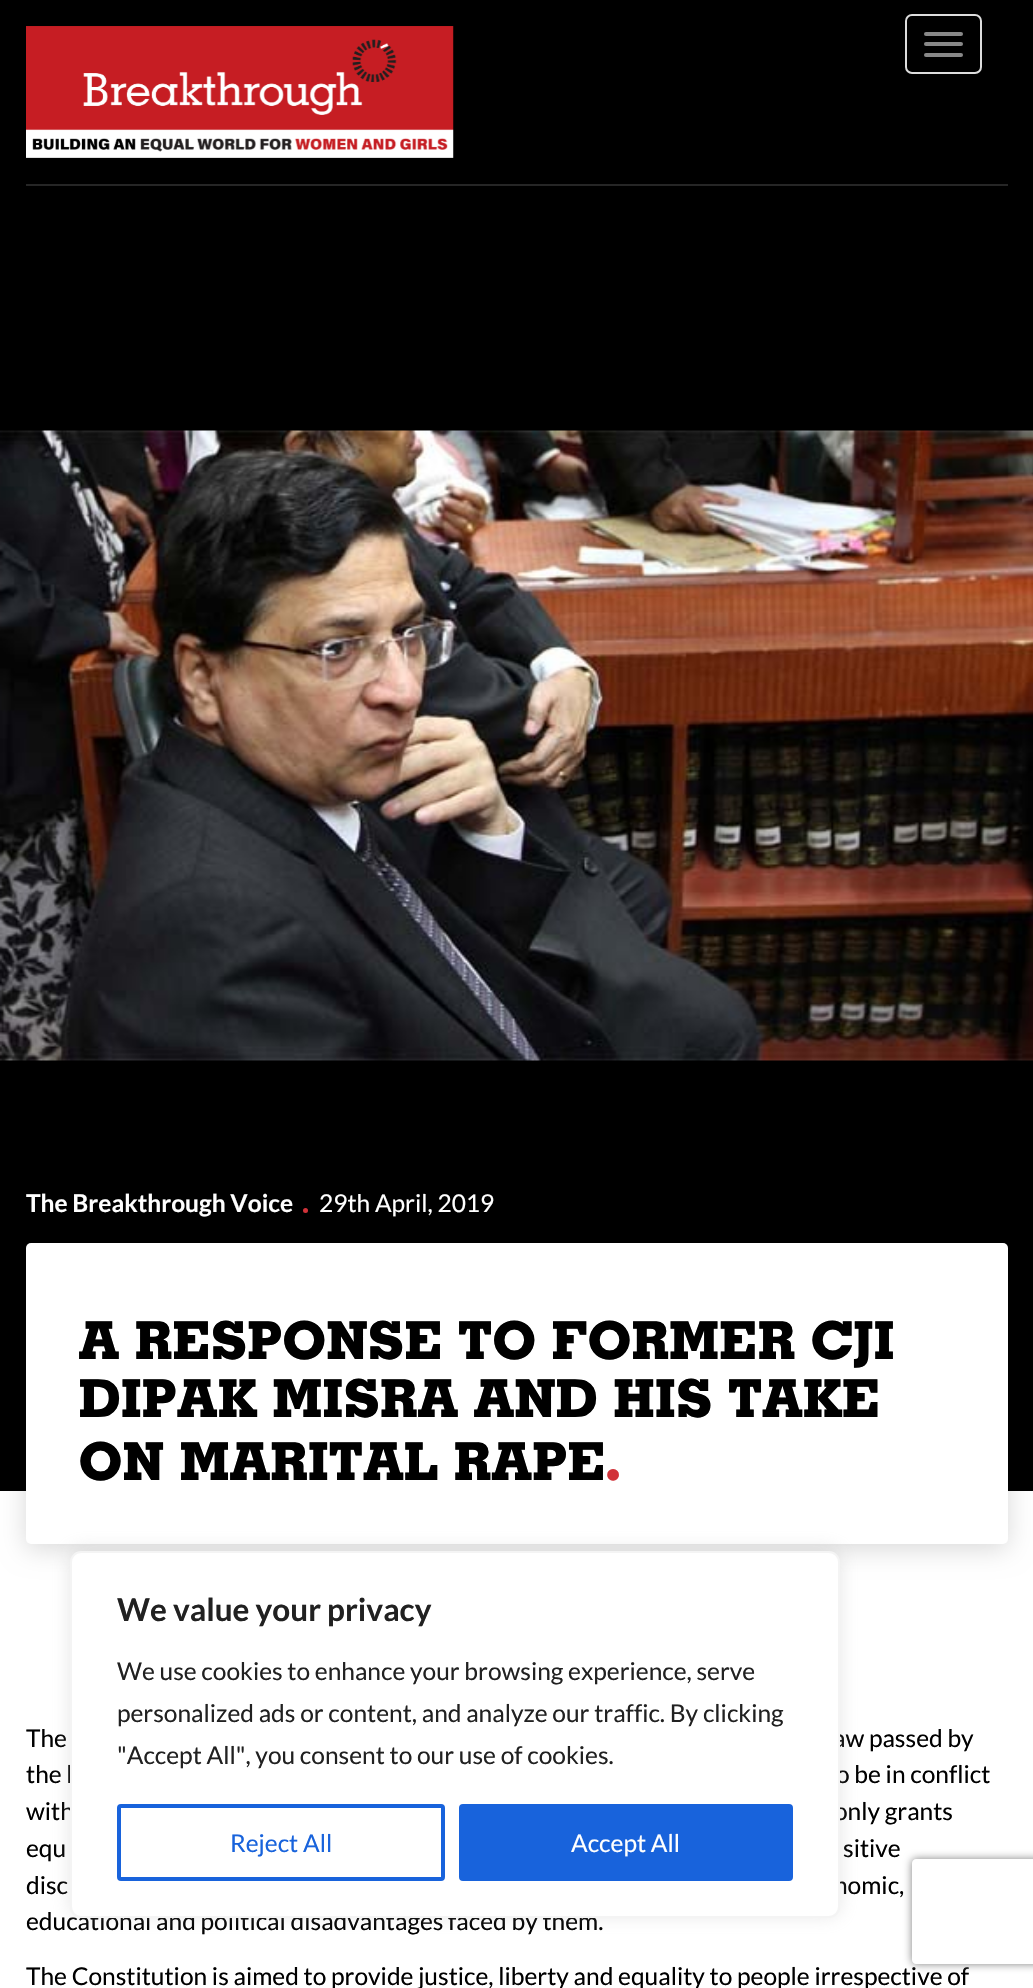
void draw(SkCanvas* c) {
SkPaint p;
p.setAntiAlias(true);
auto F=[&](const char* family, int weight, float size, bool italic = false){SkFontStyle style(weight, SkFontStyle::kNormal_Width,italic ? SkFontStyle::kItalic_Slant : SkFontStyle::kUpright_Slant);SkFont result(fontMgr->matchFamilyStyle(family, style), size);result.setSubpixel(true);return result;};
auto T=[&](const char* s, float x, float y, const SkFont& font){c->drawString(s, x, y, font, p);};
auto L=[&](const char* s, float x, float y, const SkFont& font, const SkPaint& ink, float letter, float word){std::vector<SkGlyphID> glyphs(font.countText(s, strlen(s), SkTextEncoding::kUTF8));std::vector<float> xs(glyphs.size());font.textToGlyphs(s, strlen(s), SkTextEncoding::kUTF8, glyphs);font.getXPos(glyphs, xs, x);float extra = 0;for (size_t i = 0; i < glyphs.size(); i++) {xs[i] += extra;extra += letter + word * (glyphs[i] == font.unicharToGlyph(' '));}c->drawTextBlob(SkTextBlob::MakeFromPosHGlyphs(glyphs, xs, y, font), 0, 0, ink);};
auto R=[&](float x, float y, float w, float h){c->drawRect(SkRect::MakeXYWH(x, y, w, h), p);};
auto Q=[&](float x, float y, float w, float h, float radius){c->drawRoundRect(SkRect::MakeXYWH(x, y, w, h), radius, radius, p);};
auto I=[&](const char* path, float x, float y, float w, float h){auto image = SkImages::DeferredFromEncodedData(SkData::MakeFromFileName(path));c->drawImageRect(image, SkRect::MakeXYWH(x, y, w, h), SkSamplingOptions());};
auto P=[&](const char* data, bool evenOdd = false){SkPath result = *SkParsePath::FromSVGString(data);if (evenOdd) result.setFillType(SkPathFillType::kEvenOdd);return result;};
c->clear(0xffffffff);
p.setColor(0xff000000);
R(0,0,1033,1491);
p.setColor(0xff262626);
R(26,184,982,2);
I("1.png",26,26,428,132);
p.setStroke(true);
p.setStrokeWidth(2);
p.setColor(0xffdddddd);
c->drawRoundRect(SkRect::MakeXYWH(906,15,75,58),6,6,p);
p.setStroke(false);
p.setColor(0xff888888);
Q(924,32,39,4,2);
Q(924,42,39,4,2);
Q(924,53,39,4,2);
I("2.png",0,430,1033,631);
p.setColor(0x26000000);
p.setMaskFilter(SkMaskFilter::MakeBlur(kNormal_SkBlurStyle, 13));
c->drawRoundRect(SkRect::MakeXYWH(26,1248,982,301),5,5,p);
p.setMaskFilter(nullptr);
auto f1 = F("Lato",700,24.5);
p.setColor(0xffffffff);
T("The Breakthrough Voice",26,1212,f1);
p.setColor(0xffd13239);
c->drawCircle(305.5,1210.5,2.5,p);
auto f2 = F("Lato",400,24.5);
p.setColor(0xffffffff);
T("29th April, 2019",319,1212,f2);
Q(26,1243,982,301,5);
auto f3 = F("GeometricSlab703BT",700,52.5);
p.setColor(0xff000000);
L("A RESPONSE TO FORMER CJI",79,1359,f3,p,.75,0);
L("DIPAK MISRA AND HIS TAKE",79,1417,f3,p,.75,0);
L("ON MARITAL RAPE",79,1480,f3,p,.75,0);
auto f4 = F("GeometricSlab703BT",700,58);
p.setColor(0xffd13239);
L(".",605,1480,f4,p,.75,0);
p.setColor(0xff000000);
T("The",26,1747,f2);
T("aw passed by",833,1747,f2);
T("the l",26,1783,f2);
T("o be in conflict",836,1783,f2);
T("with",26,1820,f2);
T("only grants",834,1820,f2);
T("equ",26,1857,f2);
T("sitive",843,1857,f2);
T("disc",26,1894,f2);
T("nomic,",834,1894,f2);
T("educational and political disadvantages faced by them.",26,1930,f2);
T("The Constitution is aimed to provide justice, liberty and equality to people irrespective of",26,1985,f2);
p.setColor(0x4dacabab);
p.setMaskFilter(SkMaskFilter::MakeBlur(kNormal_SkBlurStyle, 9));
c->drawRoundRect(SkRect::MakeXYWH(70,1549,770,367),11,11,p);
p.setMaskFilter(nullptr);
p.setColor(0xffffffff);
c->drawRoundRect(SkRect::MakeXYWH(71,1552,768,365),10,10,p);
p.setStroke(true);
p.setColor(0xfff4f4f4);
c->drawRoundRect(SkRect::MakeXYWH(71,1552,768,365),10,10,p);
auto f5 = F("Lato",700,31.5);
p.setStroke(false);
p.setColor(0xff212121);
T("We value your privacy",117,1621,f5);
T("We use cookies to enhance your browsing experience, serve",117,1680,f2);
T("personalized ads or content, and analyze our traffic. By clicking",117,1722,f2);
T("\"Accept All\", you consent to our use of cookies.",117,1764,f2);
p.setStroke(true);
p.setStrokeWidth(4);
p.setColor(0xff1863dc);
c->drawRoundRect(SkRect::MakeXYWH(119,1806,324,73),2,2,p);
p.setStroke(false);
T("Reject All",230,1852,f2);
c->drawRoundRect(SkRect::MakeXYWH(461,1806,330,73),2,2,p);
p.setStroke(true);
c->drawRoundRect(SkRect::MakeXYWH(461,1806,330,73),2,2,p);
p.setStroke(false);
p.setColor(0xffffffff);
T("Accept All",571,1852,f2);
c->save();
c->clipPath(P("M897 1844h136v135h-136zm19 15h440c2 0 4 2 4 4v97c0 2-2 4-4 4h-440c-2 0-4-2-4-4v-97c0-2 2-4 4-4z",true),true);
p.setColor(0xff808080);
p.setMaskFilter(SkMaskFilter::MakeBlur(kNormal_SkBlurStyle, 4.5));
c->drawRoundRect(SkRect::MakeXYWH(912,1859,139,105),4,4,p);
p.setMaskFilter(nullptr);
c->restore();
}
